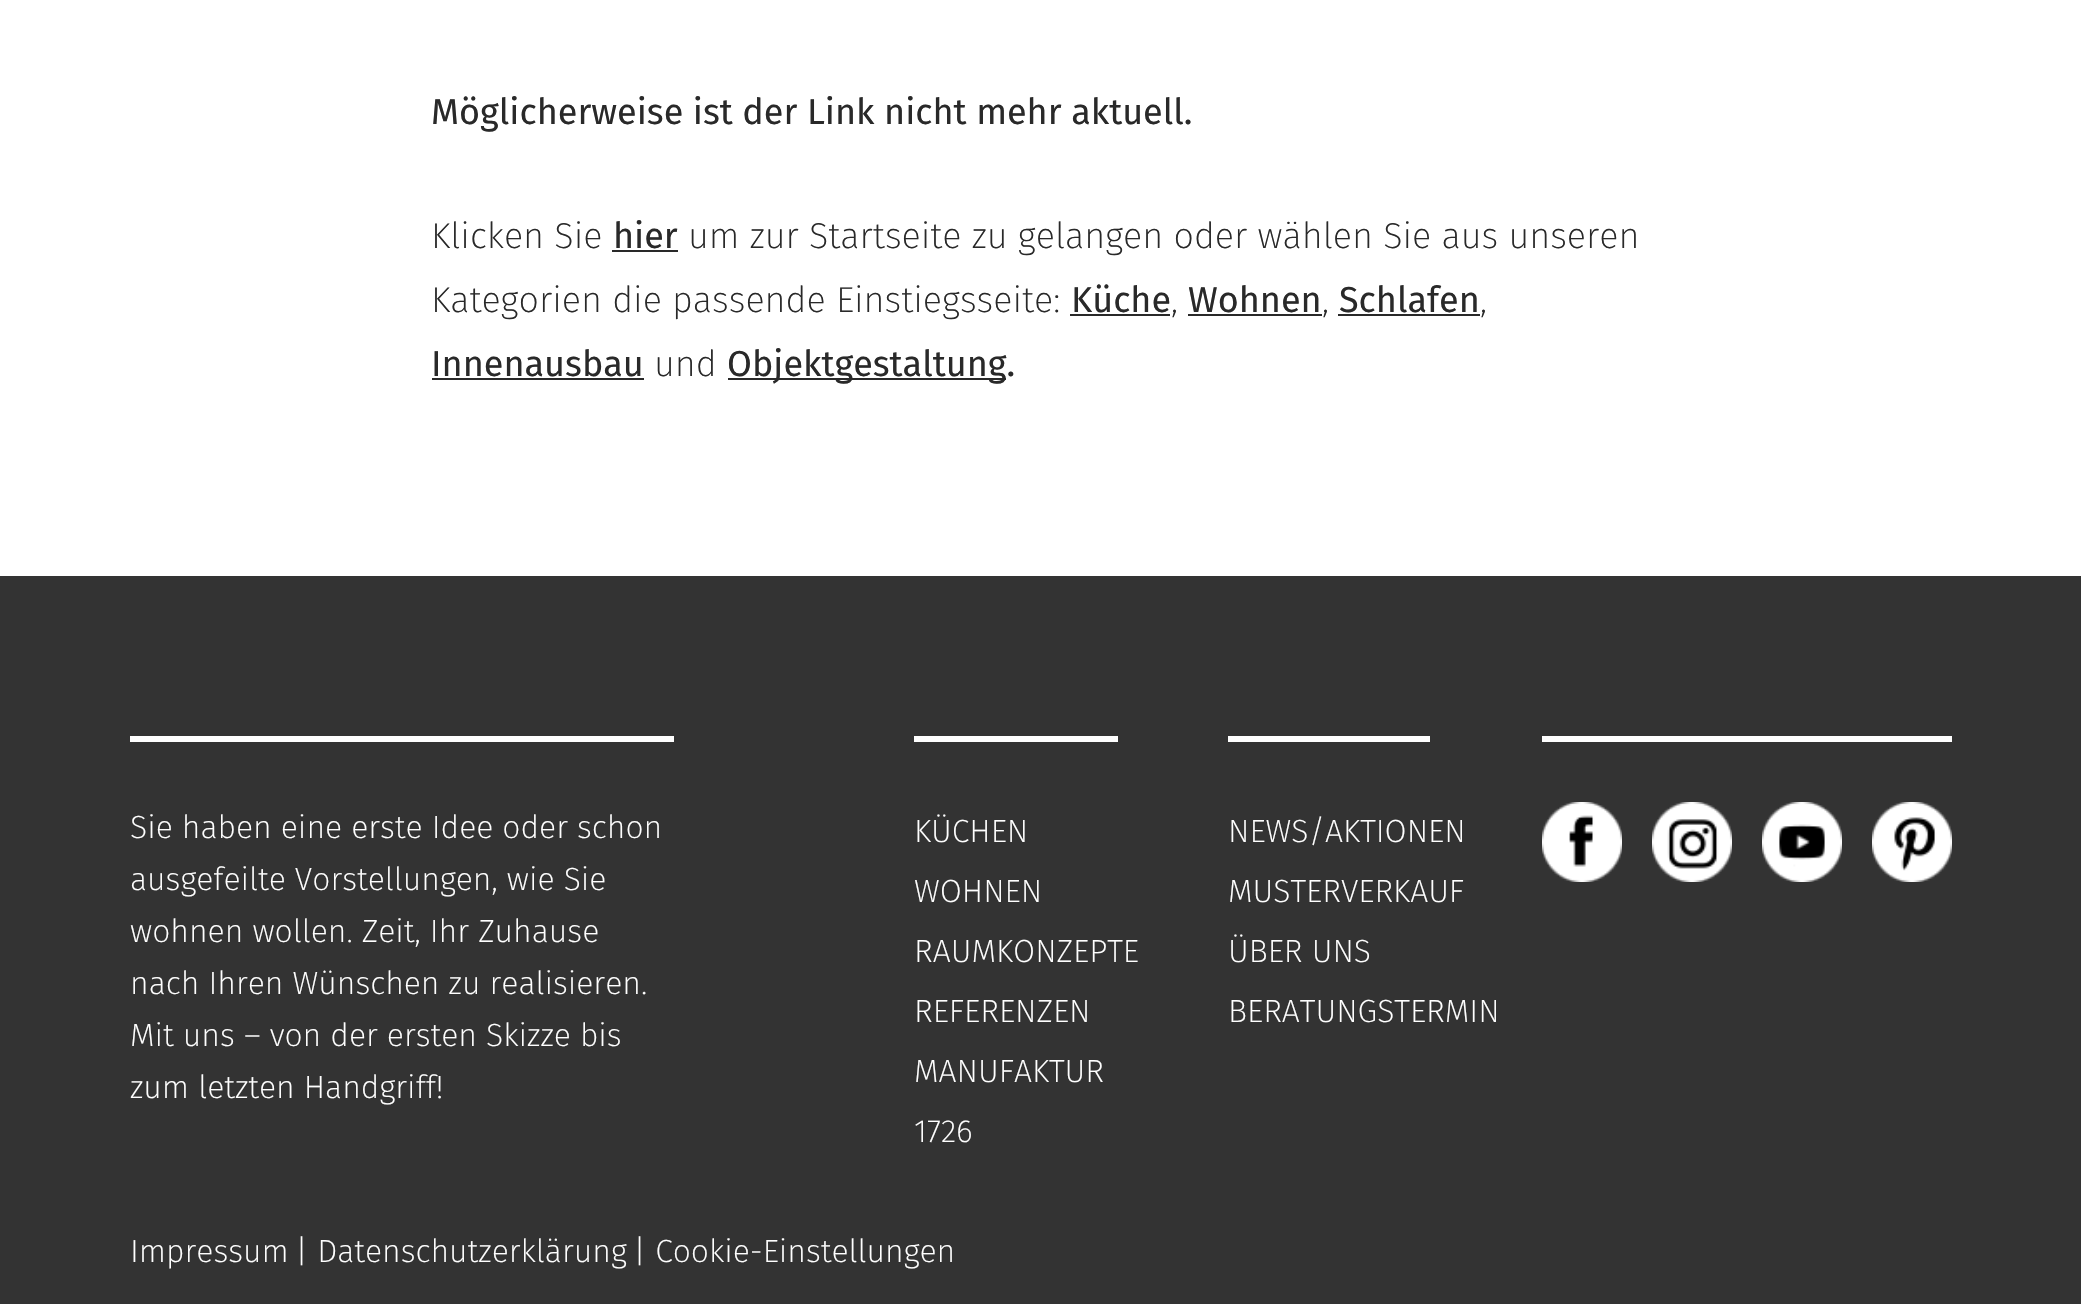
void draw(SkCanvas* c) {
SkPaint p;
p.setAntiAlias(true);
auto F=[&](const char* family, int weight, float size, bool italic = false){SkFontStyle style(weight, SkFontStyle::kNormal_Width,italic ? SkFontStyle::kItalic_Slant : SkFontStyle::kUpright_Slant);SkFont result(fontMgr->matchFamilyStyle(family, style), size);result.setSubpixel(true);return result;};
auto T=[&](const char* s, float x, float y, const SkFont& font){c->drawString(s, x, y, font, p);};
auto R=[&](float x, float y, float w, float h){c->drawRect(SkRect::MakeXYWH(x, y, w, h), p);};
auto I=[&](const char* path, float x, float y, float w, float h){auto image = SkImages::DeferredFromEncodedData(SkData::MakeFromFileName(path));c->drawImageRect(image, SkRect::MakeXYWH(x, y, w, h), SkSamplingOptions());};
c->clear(0xff333333);
p.setColor(0xffffffff);
R(0,0,2081,576);
auto f1 = F("Fira Sans",400,36);
p.setColor(0xff292929);
T("Möglicherweise ist der Link nicht mehr aktuell.",431,124,f1);
auto f2 = F("Fira Sans",300,36);
T("Klicken Sie",431,248,f2);
T("hier",613,248,f1);
R(612,250,66,2);
T("um zur Startseite zu gelangen oder wählen Sie aus unseren",688,248,f2);
T("Kategorien die passende Einstiegsseite:",431,312,f2);
T("Küche",1071,312,f1);
R(1070,314,100,2);
T(",",1171,312,f2);
T("Wohnen",1188,312,f1);
R(1188,314,134,2);
T(",",1322,312,f2);
T("Schlafen",1339,312,f1);
R(1338,314,142,2);
T(",",1480,312,f2);
T("Innenausbau",431,376,f1);
R(432,378,212,2);
T("und",654,376,f2);
R(728,378,278,2);
T("Objektgestaltung.",727,376,f1);
p.setColor(0xffffffff);
R(130,736,544,6);
auto f3 = F("Fira Sans",300,32);
T("Sie haben eine erste Idee oder schon",130,838,f3);
T("ausgefeilte Vorstellungen, wie Sie",130,890,f3);
T("wohnen wollen. Zeit, Ihr Zuhause",130,942,f3);
T("nach Ihren Wünschen zu realisieren.",130,994,f3);
T("Mit uns – von der ersten Skizze bis",130,1046,f3);
T("zum letzten Handgriff!",130,1098,f3);
R(914,736,204,6);
T("KÜCHEN",914,842,f3);
T("WOHNEN",914,902,f3);
T("RAUMKONZEPTE",914,962,f3);
T("REFERENZEN",914,1022,f3);
T("MANUFAKTUR",914,1082,f3);
T("1726",914,1142,f3);
R(1228,736,202,6);
T("NEWS/AKTIONEN",1228,842,f3);
T("MUSTERVERKAUF",1228,902,f3);
T("ÜBER UNS",1228,962,f3);
T("BERATUNGSTERMIN",1228,1022,f3);
R(1542,736,410,6);
I("1.png",1542,802,80,80);
I("2.png",1652,802,80,80);
I("3.png",1762,802,80,80);
I("4.png",1872,802,80,80);
T("Impressum",130,1262,f3);
T("| Datenschutzerklärung",295,1262,f3);
T("| Cookie-Einstellungen",633,1262,f3);
}
